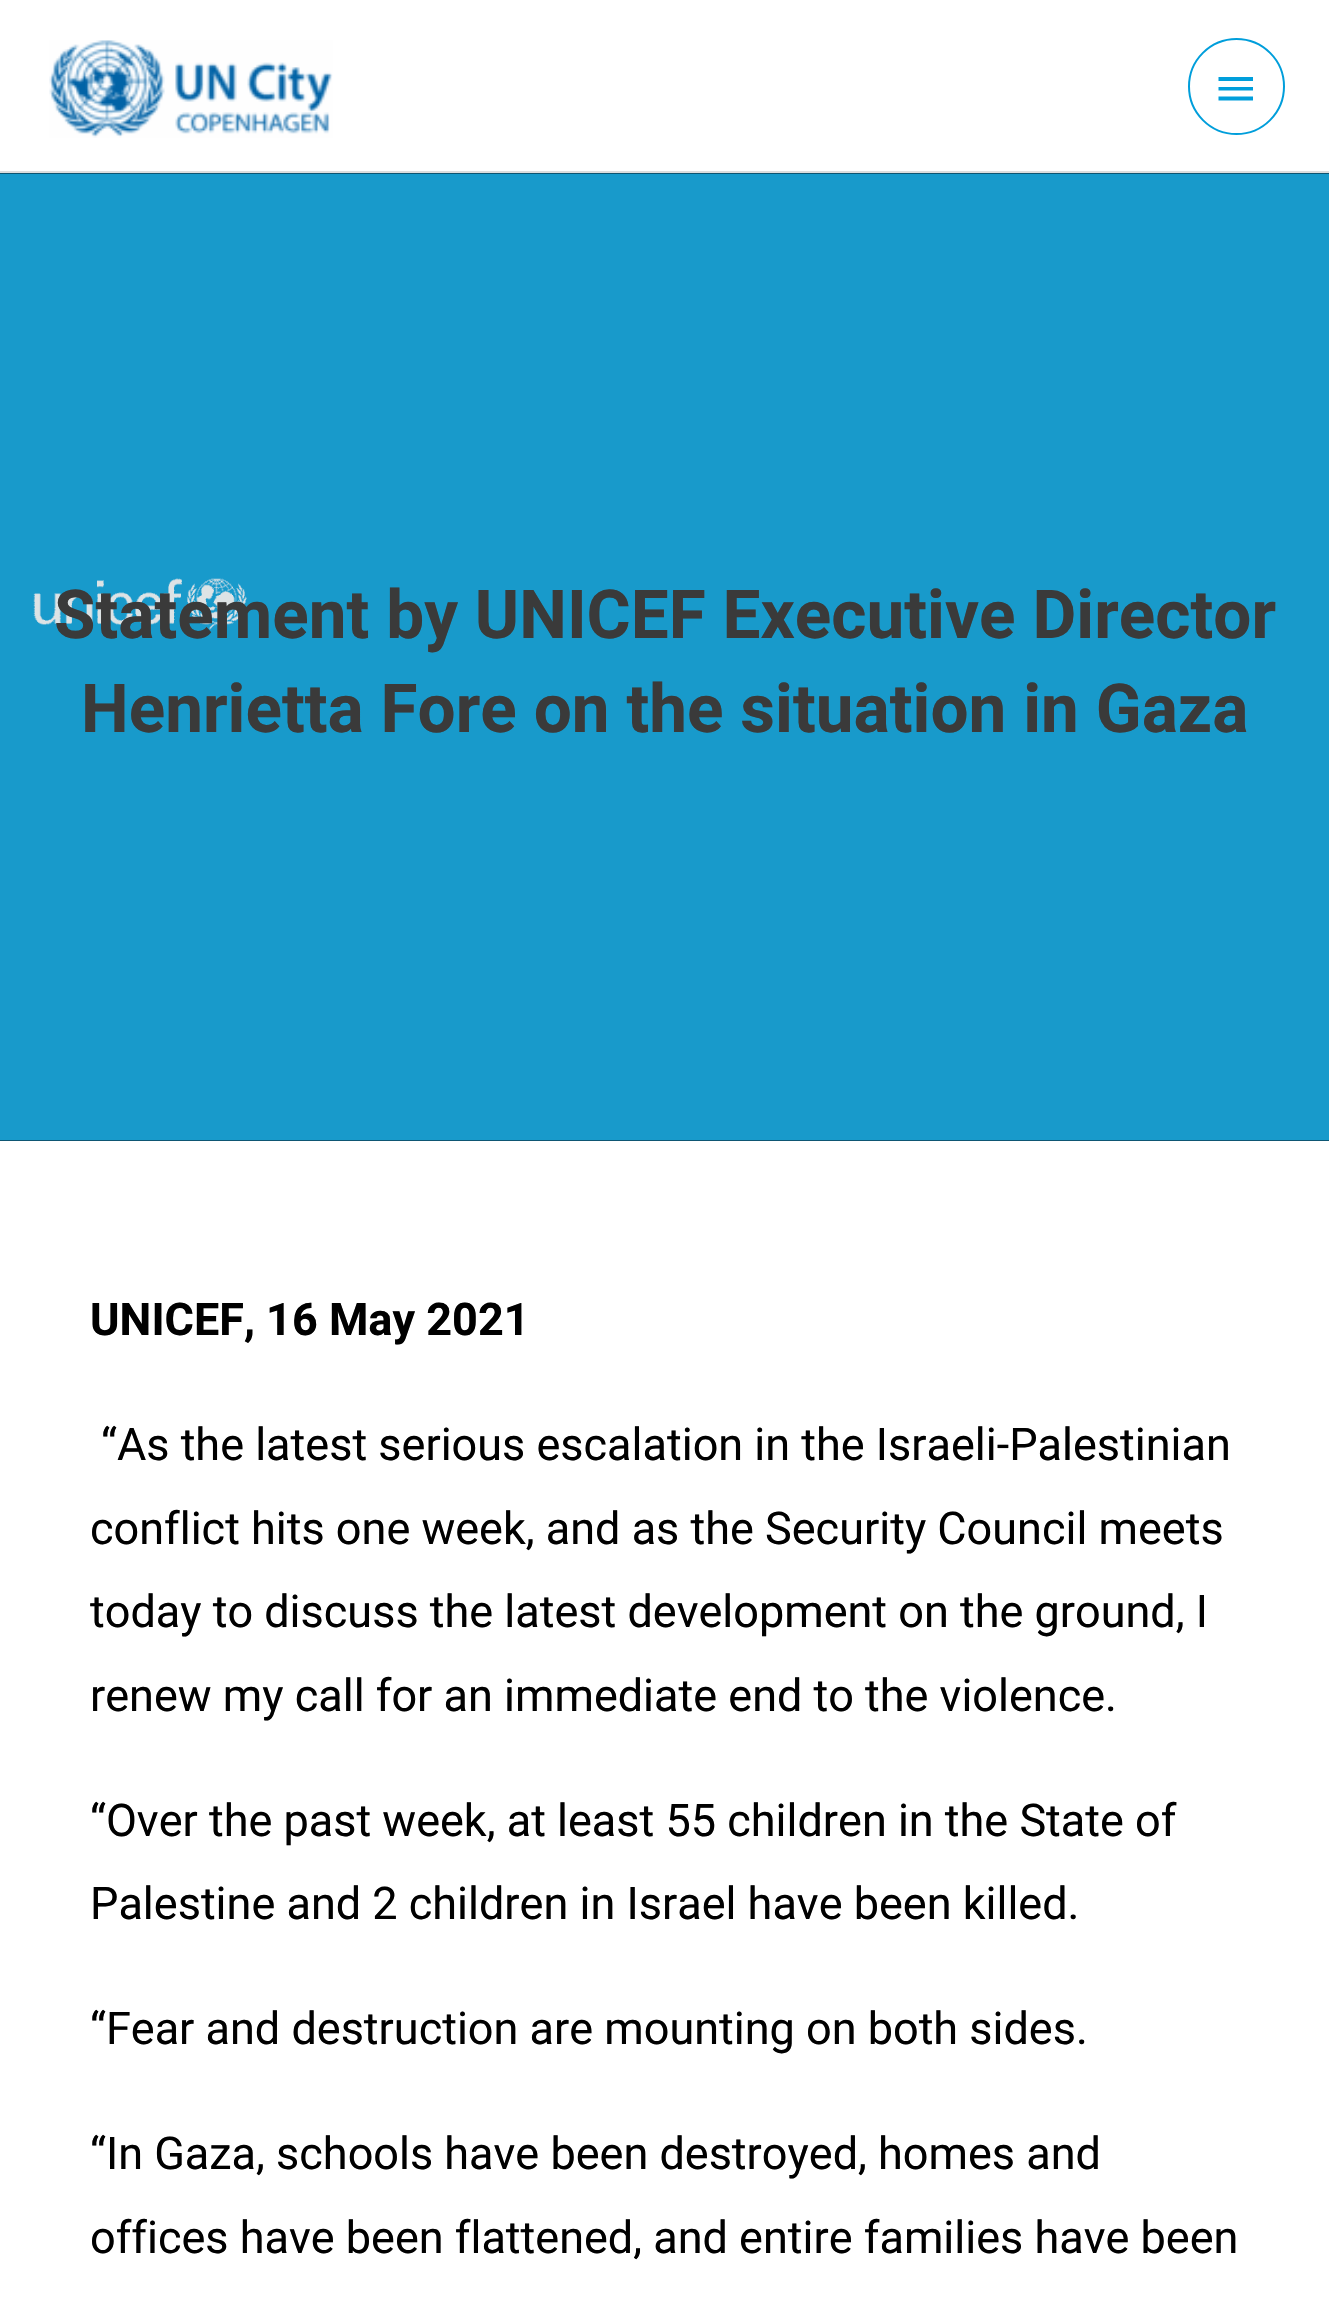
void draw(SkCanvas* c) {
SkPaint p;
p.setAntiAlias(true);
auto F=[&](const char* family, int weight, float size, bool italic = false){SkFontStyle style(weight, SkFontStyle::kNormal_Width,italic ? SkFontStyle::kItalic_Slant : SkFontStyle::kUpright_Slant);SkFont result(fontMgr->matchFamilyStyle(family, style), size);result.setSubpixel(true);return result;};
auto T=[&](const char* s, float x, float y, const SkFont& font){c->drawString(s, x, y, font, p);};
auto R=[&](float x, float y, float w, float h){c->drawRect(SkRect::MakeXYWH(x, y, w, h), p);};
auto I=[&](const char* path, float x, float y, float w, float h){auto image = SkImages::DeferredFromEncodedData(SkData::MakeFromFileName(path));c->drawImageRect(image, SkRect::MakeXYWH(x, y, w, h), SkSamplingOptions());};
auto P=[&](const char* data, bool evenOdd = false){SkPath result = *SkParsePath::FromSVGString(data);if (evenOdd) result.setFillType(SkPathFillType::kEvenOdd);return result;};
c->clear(0xffffffff);
p.setColor(0xffdddddd);
R(0,171,1329,2);
I("1.png",49,40,284,98);
p.setStroke(true);
p.setStrokeWidth(2);
p.setColor(0xff009edb);
c->drawCircle(1236.5,86.5,47.5,p);
p.setStroke(false);
c->drawPath(P("M1218.5 77h34.5v4h-34.5zm0 13.5v-3.5h34.5v3.5zm0 10v-4h34.5v4z"),p);
p.setColor(0xff000000);
R(0,173,1329,968);
I("2.png",0,173,1329,968);
auto f1 = F("Roboto",700,67.5);
p.setColor(0xff3a3a3a);
T("Statement by UNICEF Executive Director",54,638,f1);
T("Henrietta Fore on the situation in Gaza",81,732,f1);
auto f2 = F("Roboto",700,45);
p.setColor(0xff000000);
T("UNICEF, 16 May 2021",90,1335,f2);
auto f3 = F("Roboto",400,45);
T("“As the latest serious escalation in the Israeli-Palestinian",101,1460,f3);
T("conflict hits one week, and as the Security Council meets",90,1544,f3);
T("today to discuss the latest development on the ground, I",90,1627,f3);
T("renew my call for an immediate end to the violence.",90,1711,f3);
T("“Over the past week, at least 55 children in the State of",90,1836,f3);
T("Palestine and 2 children in Israel have been killed.",90,1919,f3);
T("“Fear and destruction are mounting on both sides.",90,2044,f3);
T("“In Gaza, schools have been destroyed, homes and",90,2169,f3);
T("offices have been flattened, and entire families have been",90,2253,f3);
}
